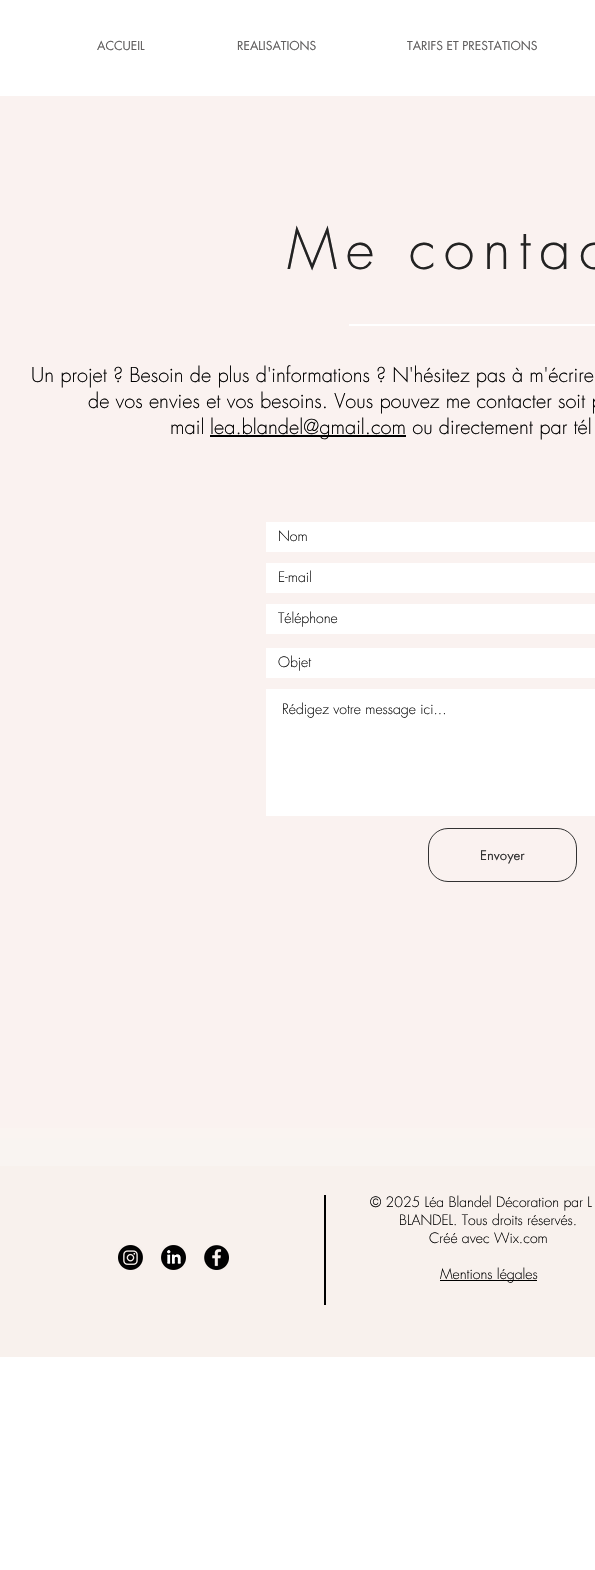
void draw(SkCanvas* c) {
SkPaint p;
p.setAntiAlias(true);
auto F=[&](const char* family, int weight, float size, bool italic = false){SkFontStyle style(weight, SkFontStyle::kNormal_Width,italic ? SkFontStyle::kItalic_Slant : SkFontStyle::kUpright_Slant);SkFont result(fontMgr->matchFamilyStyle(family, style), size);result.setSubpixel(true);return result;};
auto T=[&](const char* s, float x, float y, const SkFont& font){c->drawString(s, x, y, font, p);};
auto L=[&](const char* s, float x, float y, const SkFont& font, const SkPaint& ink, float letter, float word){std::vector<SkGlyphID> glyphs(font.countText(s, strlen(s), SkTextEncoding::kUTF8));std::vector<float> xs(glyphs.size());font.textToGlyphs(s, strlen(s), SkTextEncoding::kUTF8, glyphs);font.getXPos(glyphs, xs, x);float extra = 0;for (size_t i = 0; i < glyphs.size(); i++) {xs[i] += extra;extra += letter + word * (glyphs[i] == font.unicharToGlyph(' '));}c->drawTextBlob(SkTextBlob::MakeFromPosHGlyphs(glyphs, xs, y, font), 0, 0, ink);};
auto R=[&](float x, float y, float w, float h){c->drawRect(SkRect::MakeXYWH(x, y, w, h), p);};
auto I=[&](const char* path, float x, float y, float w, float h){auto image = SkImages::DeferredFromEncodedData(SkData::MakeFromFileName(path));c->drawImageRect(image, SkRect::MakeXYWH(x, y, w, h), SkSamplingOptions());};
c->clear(0xffffffff);
auto f1 = F("futura",400,12);
p.setColor(0xff605e5e);
T("ACCUEIL",97,50,f1);
T("REALISATIONS",237,50,f1);
T("TARIFS ET PRESTATIONS",407,50,f1);
p.setColor(0xfffaf2f0);
R(0,96,595,1032);
auto f2 = F("futura",300,56);
p.setColor(0xff232323);
L("Me contac",287,269,f2,p,8.5,0);
auto f3 = F("futura",300,20);
p.setColor(0xff000000);
T("Un projet ? Besoin de plus d'informations ? N'hésitez pas à m'écrire",31,382,f3);
T("de vos envies et vos besoins. Vous pouvez me contacter soit p",88,408,f3);
T("mail",170,434,f3);
R(210,435,196,2);
T("lea.blandel@gmail.com ou directement par tél",210,434,f3);
p.setColor(0xffffffff);
R(349,324,246,2);
R(266,522,329,30);
auto f4 = F("futura",300,14);
p.setColor(0xff0f0f0f);
T("Nom",278,541,f4);
p.setColor(0xffffffff);
R(266,563,329,30);
p.setColor(0xff0f0f0f);
T("E-mail",278,582,f4);
p.setColor(0xffffffff);
R(266,604,329,30);
p.setColor(0xff0f0f0f);
T("Téléphone",278,623,f4);
p.setColor(0xffffffff);
R(266,648,329,30);
p.setColor(0xff0f0f0f);
T("Objet",278,667,f4);
p.setColor(0xffffffff);
R(266,689,329,127);
p.setColor(0xff0f0f0f);
T("Rédigez votre message ici...",282,714,f4);
p.setStroke(true);
p.setStrokeWidth(1);
p.setColor(0xff323232);
c->drawRoundRect(SkRect::MakeXYWH(428.5,828.5,148,53),19.5,19.5,p);
auto f5 = F("futura",400,13);
p.setStroke(false);
T("Envoyer",480,860,f5);
p.setColor(0xfff8f1ed);
R(0,1128,595,229);
I("1.png",0,1128,595,38);
I("2.png",118,1245,25,25);
I("3.png",161,1245,25,25);
I("4.png",204,1245,25,25);
p.setColor(0xff000000);
R(324,1195,2,110);
T("© 2025 Léa Blandel Décoration par L",370,1207,f4);
T("BLANDEL. Tous droits réservés.",399,1225,f4);
T("Créé avec Wix.com",429,1243,f4);
R(440,1280,97,1);
T("Mentions légales",440,1279,f4);
}
